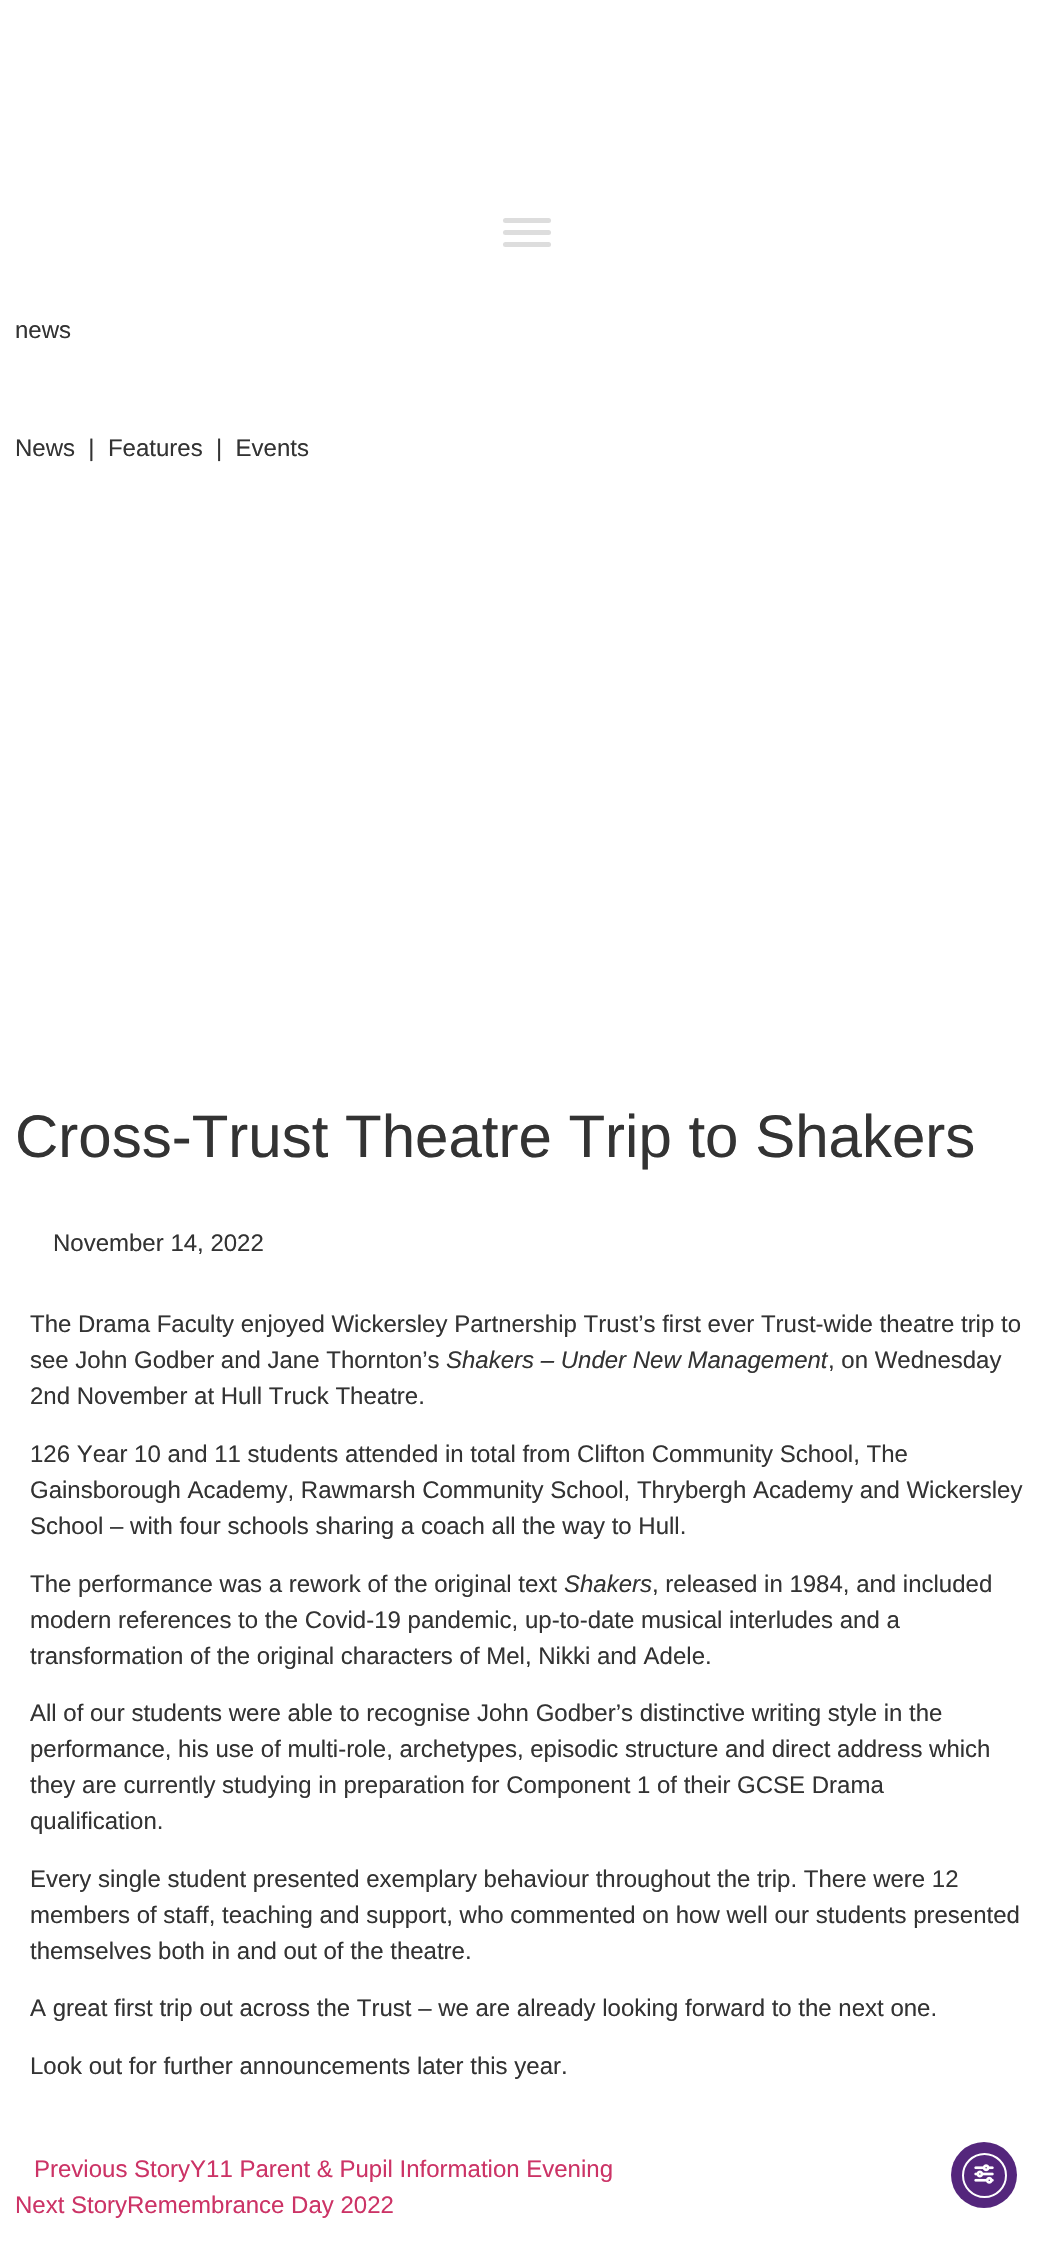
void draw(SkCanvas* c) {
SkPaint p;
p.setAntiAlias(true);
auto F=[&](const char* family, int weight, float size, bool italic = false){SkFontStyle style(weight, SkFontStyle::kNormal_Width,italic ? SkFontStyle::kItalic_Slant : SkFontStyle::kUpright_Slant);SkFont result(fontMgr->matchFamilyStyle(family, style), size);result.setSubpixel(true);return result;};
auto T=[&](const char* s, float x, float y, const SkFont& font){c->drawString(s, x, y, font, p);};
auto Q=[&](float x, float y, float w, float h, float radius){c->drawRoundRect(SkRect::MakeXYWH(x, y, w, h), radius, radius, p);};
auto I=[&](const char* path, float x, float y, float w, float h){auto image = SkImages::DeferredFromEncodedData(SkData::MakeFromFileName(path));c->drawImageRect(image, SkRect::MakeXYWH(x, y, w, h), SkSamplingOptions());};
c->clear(0xffffffff);
p.setColor(0xffdddddd);
Q(503,218,48,5,2.5);
Q(503,230,48,5,2.5);
Q(503,242,48,5,2.5);
auto f1 = F("Liberation Sans",400,24);
p.setColor(0xff333333);
T("news",15,338,f1);
T("News  |  Features  |  Events",15,456,f1);
auto f2 = F("Liberation Sans",400,60);
T("Cross-Trust Theatre Trip to Shakers",15,1157,f2);
T("November 14, 2022",53,1251,f1);
T("The Drama Faculty enjoyed Wickersley Partnership Trust’s first ever Trust-wide theatre trip to",30,1332,f1);
T("see John Godber and Jane Thornton’s",30,1368,f1);
auto f3 = F("Liberation Sans",400,24,true);
T("Shakers – Under New Management",446,1368,f3);
T(", on Wednesday",828,1368,f1);
T("2nd November at Hull Truck Theatre.",30,1404,f1);
T("126 Year 10 and 11 students attended in total from Clifton Community School, The",30,1462,f1);
T("Gainsborough Academy, Rawmarsh Community School, Thrybergh Academy and Wickersley",30,1498,f1);
T("School – with four schools sharing a coach all the way to Hull.",30,1534,f1);
T("The performance was a rework of the original text",30,1592,f1);
T("Shakers",564,1592,f3);
T(", released in 1984, and included",652,1592,f1);
T("modern references to the Covid-19 pandemic, up-to-date musical interludes and a",30,1628,f1);
T("transformation of the original characters of Mel, Nikki and Adele.",30,1664,f1);
T("All of our students were able to recognise John Godber’s distinctive writing style in the",30,1721,f1);
T("performance, his use of multi-role, archetypes, episodic structure and direct address which",30,1757,f1);
T("they are currently studying in preparation for Component 1 of their GCSE Drama",30,1793,f1);
T("qualification.",30,1829,f1);
T("Every single student presented exemplary behaviour throughout the trip. There were 12",30,1887,f1);
T("members of staff, teaching and support, who commented on how well our students presented",30,1923,f1);
T("themselves both in and out of the theatre.",30,1959,f1);
T("A great first trip out across the Trust – we are already looking forward to the next one.",30,2016,f1);
T("Look out for further announcements later this year.",30,2074,f1);
p.setColor(0xffcc3366);
T("Previous StoryY11 Parent & Pupil Information Evening",34,2177,f1);
T("Next StoryRemembrance Day 2022",15,2213,f1);
p.setColor(0xff54267c);
c->drawCircle(984,2175,33,p);
p.setStroke(true);
p.setStrokeWidth(2);
p.setColor(0xffffffff);
c->drawCircle(984.5,2175.5,21.5,p);
I("1.png",974,2164,20,20);
}
